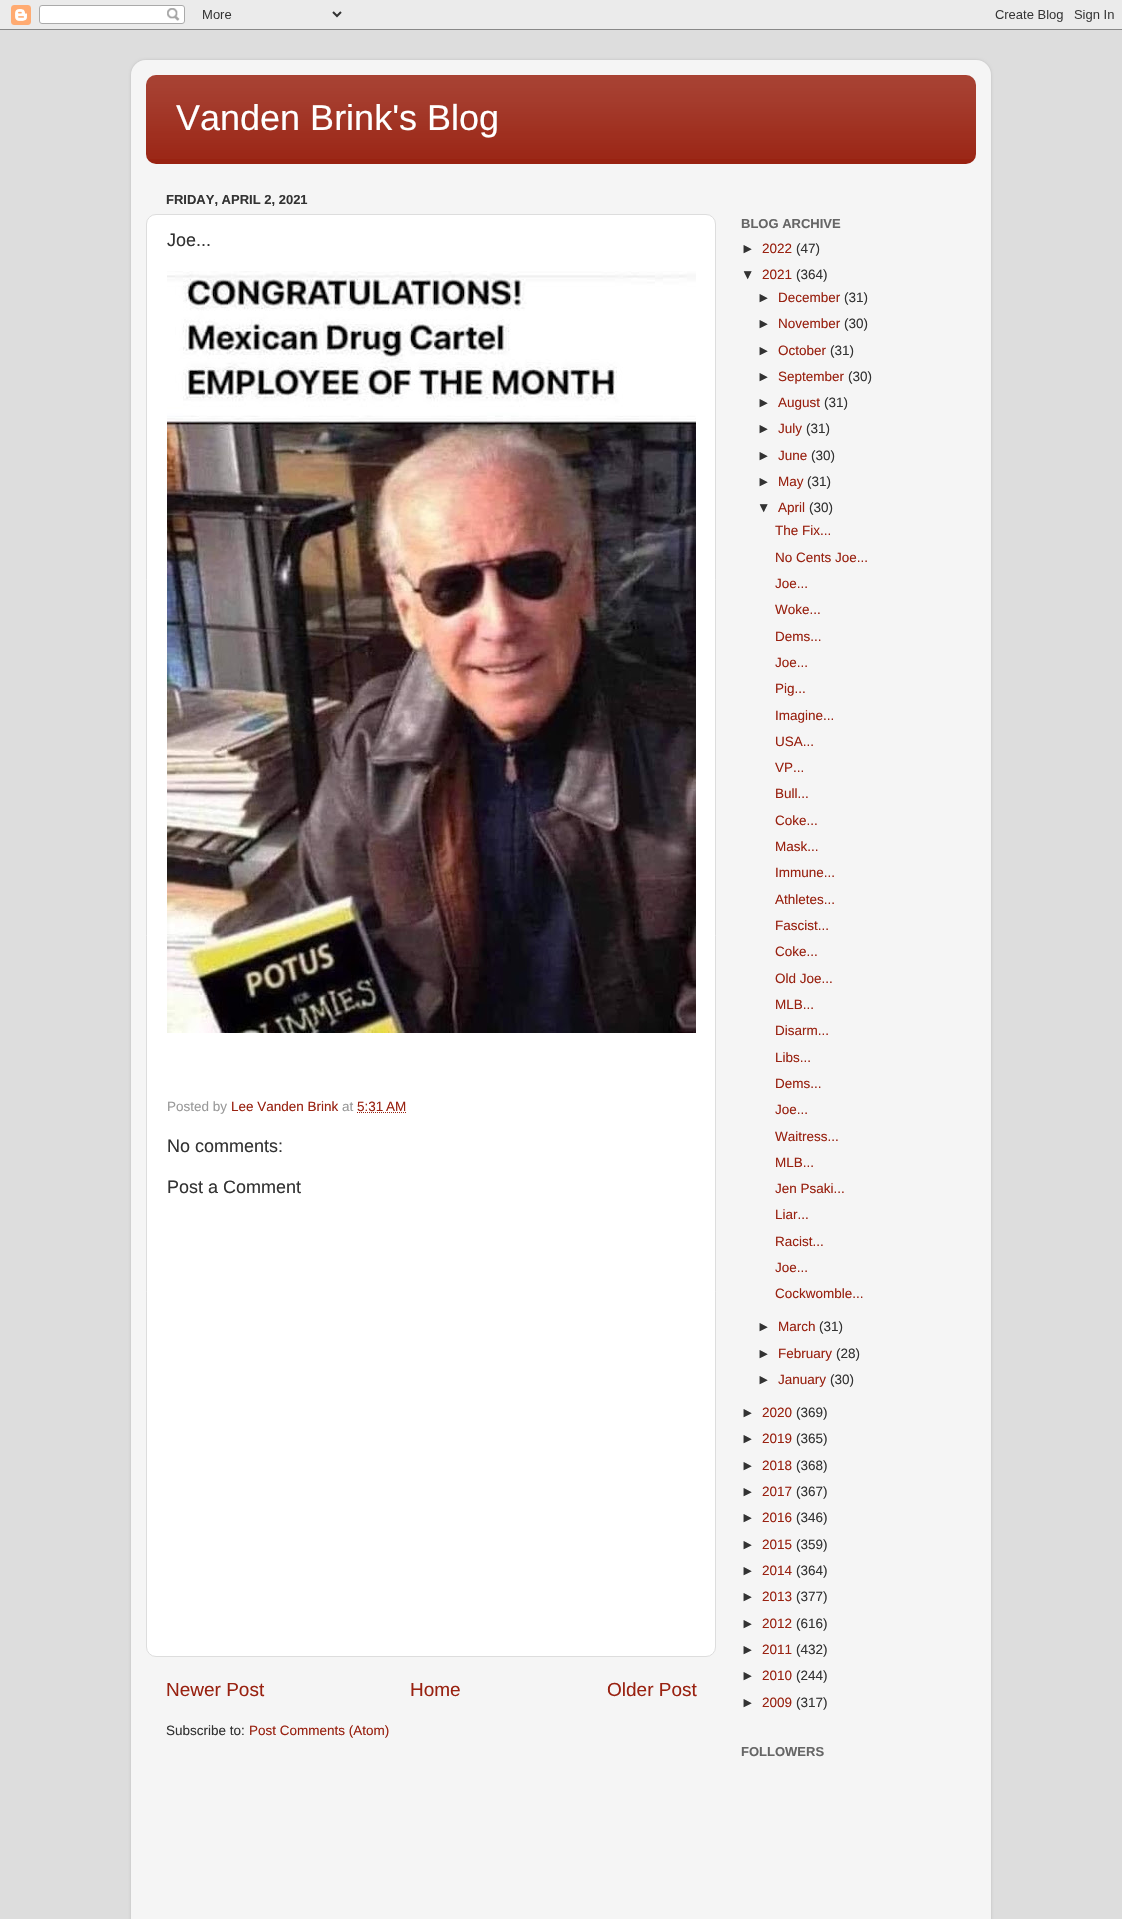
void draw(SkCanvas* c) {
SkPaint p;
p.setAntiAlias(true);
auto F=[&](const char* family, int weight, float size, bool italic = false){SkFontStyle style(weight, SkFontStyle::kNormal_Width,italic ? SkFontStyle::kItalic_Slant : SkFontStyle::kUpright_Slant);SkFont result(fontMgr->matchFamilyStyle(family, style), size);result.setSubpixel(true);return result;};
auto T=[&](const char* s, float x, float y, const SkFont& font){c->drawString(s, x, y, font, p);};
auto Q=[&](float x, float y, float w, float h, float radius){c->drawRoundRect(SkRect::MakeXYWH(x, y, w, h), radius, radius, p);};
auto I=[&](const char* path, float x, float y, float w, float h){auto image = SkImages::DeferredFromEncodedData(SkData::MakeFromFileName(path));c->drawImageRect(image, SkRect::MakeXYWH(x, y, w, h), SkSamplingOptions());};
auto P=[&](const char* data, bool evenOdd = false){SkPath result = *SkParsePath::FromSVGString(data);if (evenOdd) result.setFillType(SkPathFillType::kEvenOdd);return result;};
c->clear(0xffdddddd);
I("1.png",0,0,1122,30);
c->save();
c->clipPath(P("M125 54h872v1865h-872zm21 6h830c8.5 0 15 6.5 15 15v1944c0 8.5-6.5 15-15 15h-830c-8.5 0-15-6.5-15-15v-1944c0-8.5 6.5-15 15-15z",true),true);
p.setColor(0x26000000);
p.setMaskFilter(SkMaskFilter::MakeBlur(kNormal_SkBlurStyle, 1.5));
c->drawRoundRect(SkRect::MakeXYWH(131,60,860,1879),15,15,p);
p.setMaskFilter(nullptr);
c->restore();
I("2.png",131,60,860,1859);
p.setColor(0xff992211);
Q(146,75,830,89,10);
I("3.png",146,75,830,84);
auto f1 = F("Liberation Sans",400,36);
p.setColor(0xffffffff);
T("Vanden Brink's Blog",176,130,f1);
auto f2 = F("Liberation Sans",700,13);
p.setColor(0xff333333);
T("FRIDAY, APRIL 2, 2021",166,204,f2);
p.setColor(0xffffffff);
c->drawRoundRect(SkRect::MakeXYWH(146.5,214.5,569,1442),9.5,9.5,p);
p.setStroke(true);
p.setStrokeWidth(1);
p.setColor(0xffdddddd);
c->drawRoundRect(SkRect::MakeXYWH(146.5,214.5,569,1442),9.5,9.5,p);
auto f3 = F("Liberation Sans",400,18);
p.setStroke(false);
p.setColor(0xff333333);
T("Joe...",167,246,f3);
I("4.png",167,271,529,762);
auto f4 = F("Liberation Sans",400,13.5);
p.setColor(0xff999999);
T("Posted by",167,1111,f4);
p.setColor(0xff992211);
T("Lee Vanden Brink",231,1111,f4);
p.setColor(0xff999999);
T("at",342,1111,f4);
p.setColor(0xff992211);
T("5:31 AM",357,1111,f4);
p.setStroke(true);
p.setPathEffect(SkDashPathEffect::Make({{1,1}}, 0));
c->drawPath(P("M357 1112.5h49"),p);
p.setPathEffect(nullptr);
p.setStroke(false);
p.setColor(0xff333333);
T("No comments:",167,1152,f3);
T("Post a Comment",167,1193,f3);
auto f5 = F("Liberation Sans",400,19);
p.setColor(0xff992211);
T("Newer Post",166,1696,f5);
T("Home",410,1696,f5);
T("Older Post",607,1696,f5);
p.setColor(0xff333333);
T("Subscribe to:",166,1735,f4);
p.setColor(0xff992211);
T("Post Comments (Atom)",249,1735,f4);
p.setColor(0xff666666);
T("BLOG ARCHIVE",741,228,f2);
p.setColor(0xff333333);
T("►",741,253,f4);
p.setColor(0xff992211);
T("2022",762,253,f4);
p.setColor(0xff333333);
T("(47)",796,253,f4);
T("▼",741,279,f4);
p.setColor(0xff992211);
T("2021",762,279,f4);
p.setColor(0xff333333);
T("(364)",796,279,f4);
T("►",757,302,f4);
p.setColor(0xff992211);
T("December",778,302,f4);
p.setColor(0xff333333);
T("(31)",844,302,f4);
T("►",757,328,f4);
p.setColor(0xff992211);
T("November",778,328,f4);
p.setColor(0xff333333);
T("(30)",844,328,f4);
T("►",757,355,f4);
p.setColor(0xff992211);
T("October",778,355,f4);
p.setColor(0xff333333);
T("(31)",830,355,f4);
T("►",757,381,f4);
p.setColor(0xff992211);
T("September",778,381,f4);
p.setColor(0xff333333);
T("(30)",848,381,f4);
T("►",757,407,f4);
p.setColor(0xff992211);
T("August",778,407,f4);
p.setColor(0xff333333);
T("(31)",824,407,f4);
T("►",757,433,f4);
p.setColor(0xff992211);
T("July",778,433,f4);
p.setColor(0xff333333);
T("(31)",806,433,f4);
T("►",757,460,f4);
p.setColor(0xff992211);
T("June",778,460,f4);
p.setColor(0xff333333);
T("(30)",811,460,f4);
T("►",757,486,f4);
p.setColor(0xff992211);
T("May",778,486,f4);
p.setColor(0xff333333);
T("(31)",807,486,f4);
T("▼",757,512,f4);
p.setColor(0xff992211);
T("April",778,512,f4);
p.setColor(0xff333333);
T("(30)",809,512,f4);
p.setColor(0xff992211);
T("The Fix...",775,535,f4);
T("No Cents Joe...",775,562,f4);
T("Joe...",775,588,f4);
T("Woke...",775,614,f4);
T("Dems...",775,641,f4);
T("Joe...",775,667,f4);
T("Pig...",775,693,f4);
T("Imagine...",775,720,f4);
T("USA...",775,746,f4);
T("VP...",775,772,f4);
T("Bull...",775,798,f4);
T("Coke...",775,825,f4);
T("Mask...",775,851,f4);
T("Immune...",775,877,f4);
T("Athletes...",775,904,f4);
T("Fascist...",775,930,f4);
T("Coke...",775,956,f4);
T("Old Joe...",775,983,f4);
T("MLB...",775,1009,f4);
T("Disarm...",775,1035,f4);
T("Libs...",775,1062,f4);
T("Dems...",775,1088,f4);
T("Joe...",775,1114,f4);
T("Waitress...",775,1141,f4);
T("MLB...",775,1167,f4);
T("Jen Psaki...",775,1193,f4);
T("Liar...",775,1219,f4);
T("Racist...",775,1246,f4);
T("Joe...",775,1272,f4);
T("Cockwomble...",775,1298,f4);
p.setColor(0xff333333);
T("►",757,1331,f4);
p.setColor(0xff992211);
T("March",778,1331,f4);
p.setColor(0xff333333);
T("(31)",819,1331,f4);
T("►",757,1358,f4);
p.setColor(0xff992211);
T("February",778,1358,f4);
p.setColor(0xff333333);
T("(28)",836,1358,f4);
T("►",757,1384,f4);
p.setColor(0xff992211);
T("January",778,1384,f4);
p.setColor(0xff333333);
T("(30)",830,1384,f4);
T("►",741,1417,f4);
p.setColor(0xff992211);
T("2020",762,1417,f4);
p.setColor(0xff333333);
T("(369)",796,1417,f4);
T("►",741,1443,f4);
p.setColor(0xff992211);
T("2019",762,1443,f4);
p.setColor(0xff333333);
T("(365)",796,1443,f4);
T("►",741,1470,f4);
p.setColor(0xff992211);
T("2018",762,1470,f4);
p.setColor(0xff333333);
T("(368)",796,1470,f4);
T("►",741,1496,f4);
p.setColor(0xff992211);
T("2017",762,1496,f4);
p.setColor(0xff333333);
T("(367)",796,1496,f4);
T("►",741,1522,f4);
p.setColor(0xff992211);
T("2016",762,1522,f4);
p.setColor(0xff333333);
T("(346)",796,1522,f4);
T("►",741,1549,f4);
p.setColor(0xff992211);
T("2015",762,1549,f4);
p.setColor(0xff333333);
T("(359)",796,1549,f4);
T("►",741,1575,f4);
p.setColor(0xff992211);
T("2014",762,1575,f4);
p.setColor(0xff333333);
T("(364)",796,1575,f4);
T("►",741,1601,f4);
p.setColor(0xff992211);
T("2013",762,1601,f4);
p.setColor(0xff333333);
T("(377)",796,1601,f4);
T("►",741,1628,f4);
p.setColor(0xff992211);
T("2012",762,1628,f4);
p.setColor(0xff333333);
T("(616)",796,1628,f4);
T("►",741,1654,f4);
p.setColor(0xff992211);
T("2011",762,1654,f4);
p.setColor(0xff333333);
T("(432)",796,1654,f4);
T("►",741,1680,f4);
p.setColor(0xff992211);
T("2010",762,1680,f4);
p.setColor(0xff333333);
T("(244)",796,1680,f4);
T("►",741,1707,f4);
p.setColor(0xff992211);
T("2009",762,1707,f4);
p.setColor(0xff333333);
T("(317)",796,1707,f4);
p.setColor(0xff666666);
T("FOLLOWERS",741,1756,f2);
}
